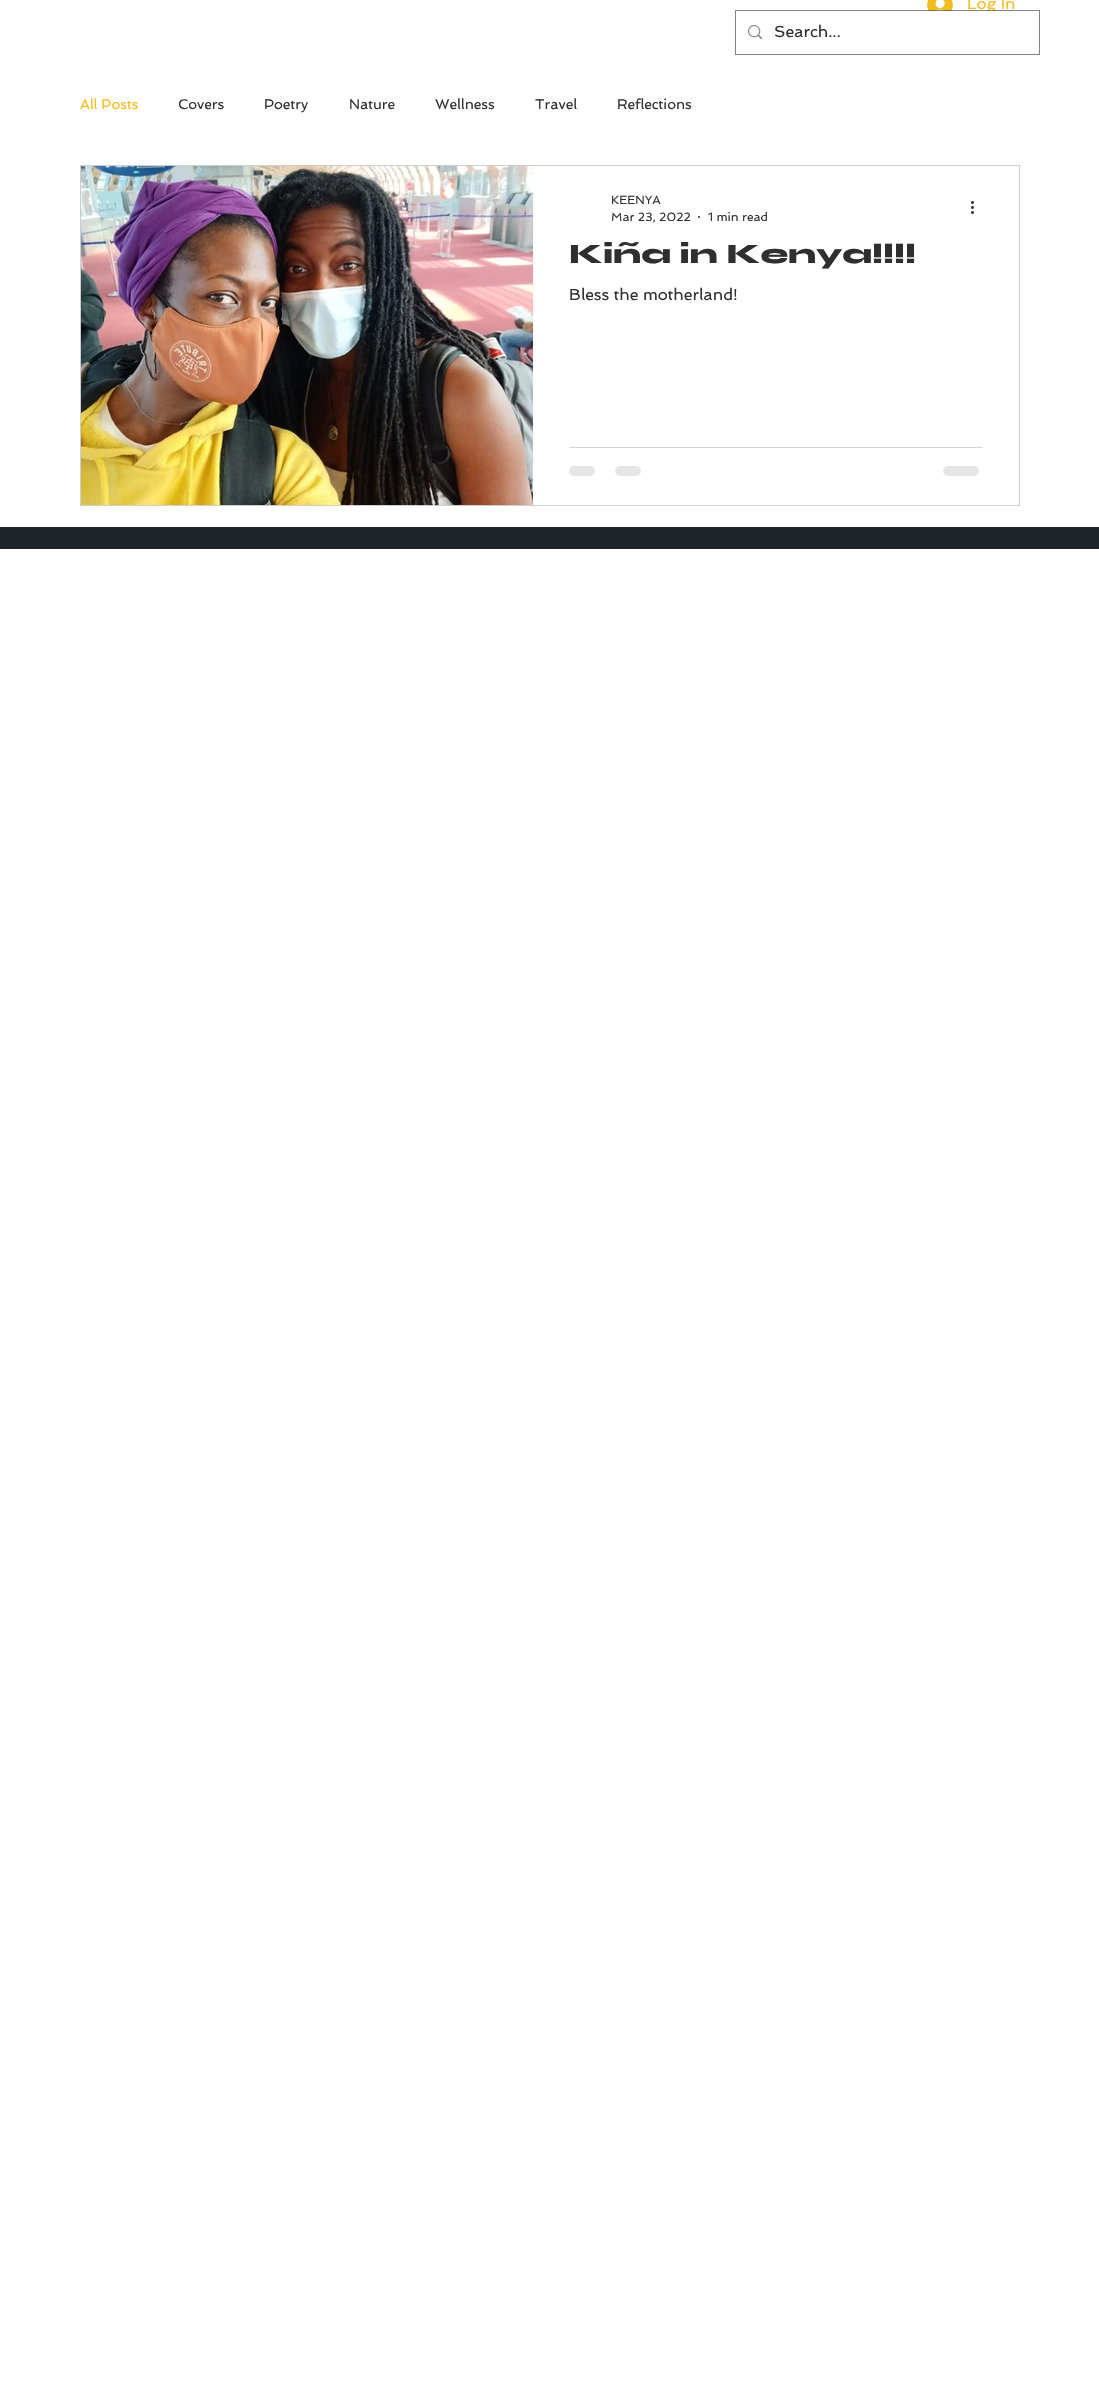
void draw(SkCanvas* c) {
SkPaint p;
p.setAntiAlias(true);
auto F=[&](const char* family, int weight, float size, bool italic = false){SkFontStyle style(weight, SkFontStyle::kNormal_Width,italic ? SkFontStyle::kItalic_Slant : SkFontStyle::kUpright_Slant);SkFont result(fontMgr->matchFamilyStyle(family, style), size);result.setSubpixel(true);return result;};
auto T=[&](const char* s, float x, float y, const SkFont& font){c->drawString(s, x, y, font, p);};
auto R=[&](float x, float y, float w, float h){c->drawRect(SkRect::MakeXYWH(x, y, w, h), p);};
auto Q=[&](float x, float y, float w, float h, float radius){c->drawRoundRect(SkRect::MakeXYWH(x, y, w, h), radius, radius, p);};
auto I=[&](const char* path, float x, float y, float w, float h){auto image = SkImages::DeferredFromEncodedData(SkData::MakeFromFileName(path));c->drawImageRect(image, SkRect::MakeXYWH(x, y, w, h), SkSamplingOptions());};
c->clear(0xffffffff);
I("1.png",927,0,26,11);
auto f1 = F("Spinnaker",400,16);
p.setColor(0xfff2bd1e);
T("Log In",967,9,f1);
p.setStroke(true);
p.setStrokeWidth(1);
p.setColor(0x992f2f30);
c->drawRect(SkRect::MakeXYWH(735.5,10.5,304,44),p);
p.setStroke(false);
p.setColor(0xffffffff);
R(988,11,7,2);
I("2.png",748,25,14,15);
p.setColor(0xff2f2f30);
T("Search...",774,37,f1);
auto f2 = F("Spinnaker",400,14);
p.setColor(0xfff2bd1e);
T("All Posts",80,109,f2);
p.setColor(0xff2f2f30);
T("Covers",178,109,f2);
T("Poetry",264,109,f2);
T("Nature",349,109,f2);
T("Wellness",435,109,f2);
T("Travel",535,109,f2);
T("Reflections",617,109,f2);
p.setStroke(true);
p.setColor(0xffcecdd1);
c->drawRect(SkRect::MakeXYWH(80.5,165.5,939,340),p);
I("3.png",81,166,452,339);
auto f3 = F("Spinnaker",400,12);
p.setStroke(false);
p.setColor(0xff2f2f30);
T("KEENYA",611,204,f3);
T("Mar 23, 2022",611,221,f3);
c->drawCircle(699,217,1,p);
T("1 min read",708,221,f3);
I("4.png",971,201,3,13);
auto f4 = F("Syne",800,28);
T("Kiña in Kenya!!!!",569,263,f4);
T("Bless the motherland!",569,300,f1);
p.setColor(0xffd5d5d6);
R(569,447,414,1);
p.setColor(0xffe6e6e6);
Q(569,466,26,10,5);
Q(615,466,26,10,5);
Q(943,466,36,10,5);
p.setColor(0xff1f2528);
R(0,527,1099,22);
}
